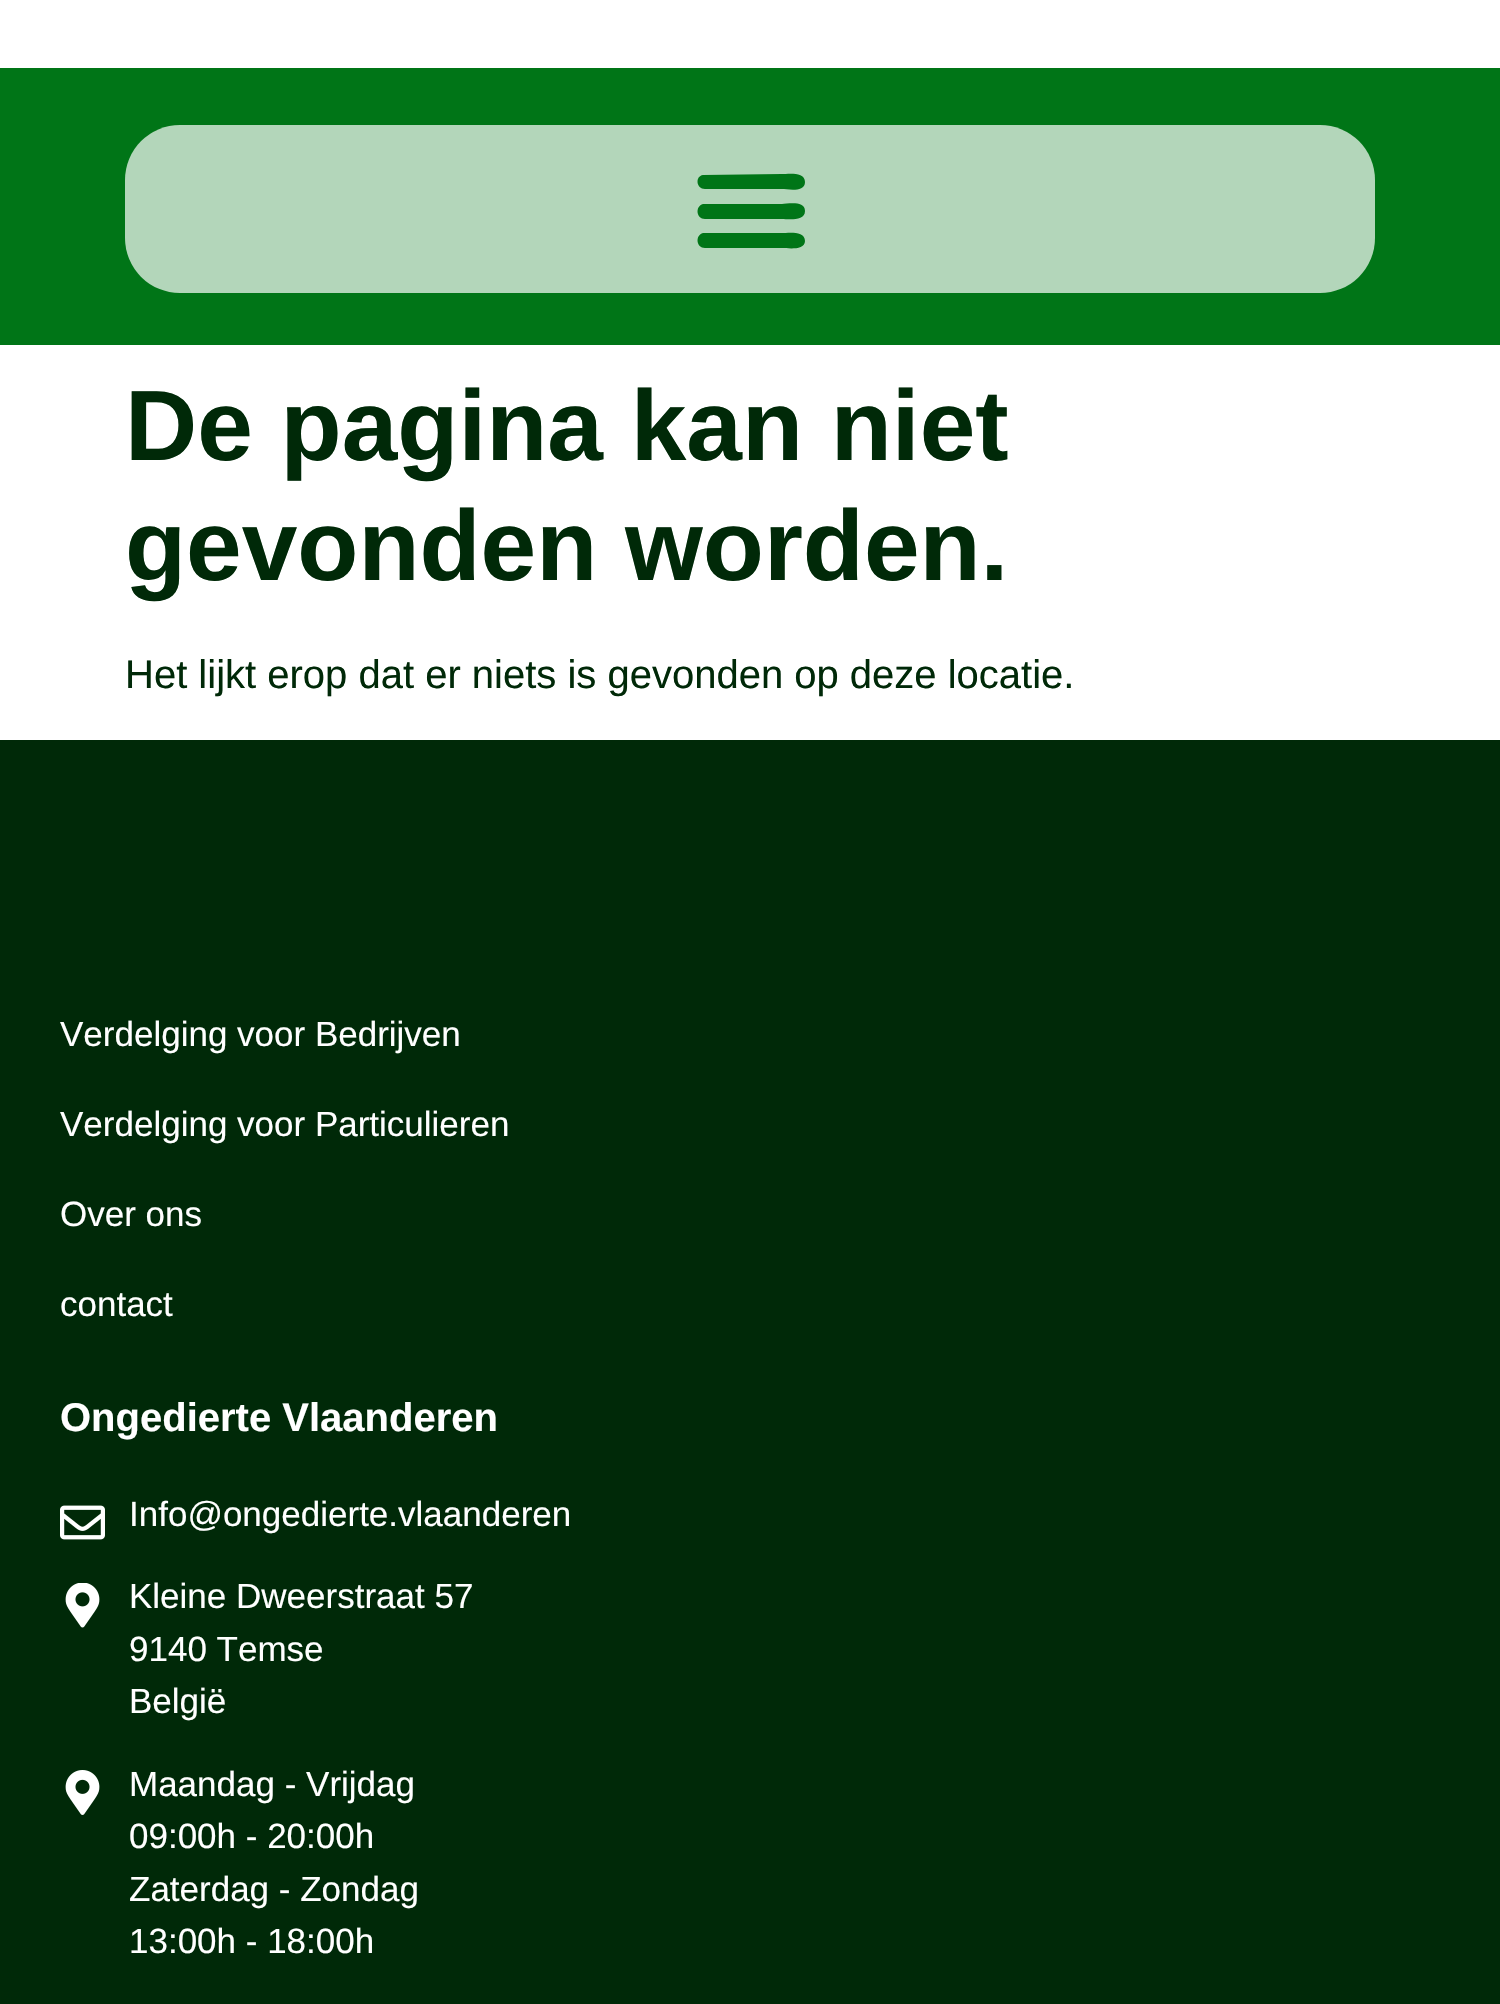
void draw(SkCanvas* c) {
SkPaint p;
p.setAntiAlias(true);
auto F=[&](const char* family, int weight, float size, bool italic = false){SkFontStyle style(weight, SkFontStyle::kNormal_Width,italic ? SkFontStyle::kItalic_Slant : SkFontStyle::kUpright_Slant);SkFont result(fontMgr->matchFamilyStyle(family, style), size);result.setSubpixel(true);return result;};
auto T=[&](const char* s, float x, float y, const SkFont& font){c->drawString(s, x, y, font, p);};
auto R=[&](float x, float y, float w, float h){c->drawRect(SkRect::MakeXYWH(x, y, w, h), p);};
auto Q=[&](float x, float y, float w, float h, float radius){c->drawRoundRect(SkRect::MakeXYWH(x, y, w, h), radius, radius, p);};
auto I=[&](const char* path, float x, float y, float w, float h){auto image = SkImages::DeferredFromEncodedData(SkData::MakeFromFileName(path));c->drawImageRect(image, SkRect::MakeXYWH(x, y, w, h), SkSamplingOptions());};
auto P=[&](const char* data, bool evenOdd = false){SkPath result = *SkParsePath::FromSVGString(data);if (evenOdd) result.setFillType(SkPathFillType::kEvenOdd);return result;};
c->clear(0xffffffff);
p.setColor(0xff007517);
R(0,68,1500,277);
p.setColor(0xb3ffffff);
Q(125,125,1250,168,55);
p.setColor(0xff007517);
c->drawPath(P("M705 189h77c5 0 23 4 23-7c0-11-18-8-23-8l-79 1c-8 1-7 14 2 14zm0 30h77c5 0 23 3 23-8c0-11-18-7-23-7h-79c-8 2-7 15 2 15zm0 29h77c5 0 23 3 23-7c0-11-18-8-23-8h-79c-8 2-7 15 2 15z"),p);
auto f1 = F("Liberation Sans",700,100);
p.setColor(0xff002908);
T("De pagina kan niet",125,460,f1);
T("gevonden worden.",125,580,f1);
auto f2 = F("Liberation Sans",400,40);
T("Het lijkt erop dat er niets is gevonden op deze locatie.",125,688,f2);
R(0,740,1500,1264);
auto f3 = F("Liberation Sans",400,35);
p.setColor(0xffffffff);
T("Verdelging voor Bedrijven",60,1046,f3);
T("Verdelging voor Particulieren",60,1136,f3);
T("Over ons",60,1226,f3);
T("contact",60,1316,f3);
auto f4 = F("Liberation Sans",700,40);
T("Ongedierte Vlaanderen",60,1431,f4);
I("1.png",60,1505,45,35);
T("Info@ongedierte.vlaanderen",129,1526,f3);
I("2.png",65,1583,35,45);
T("Kleine Dweerstraat 57",129,1608,f3);
T("9140 Temse",129,1661,f3);
T("België",129,1713,f3);
I("3.png",65,1770,35,45);
T("Maandag - Vrijdag",129,1796,f3);
T("09:00h - 20:00h",129,1848,f3);
T("Zaterdag - Zondag",129,1901,f3);
T("13:00h - 18:00h",129,1953,f3);
}
